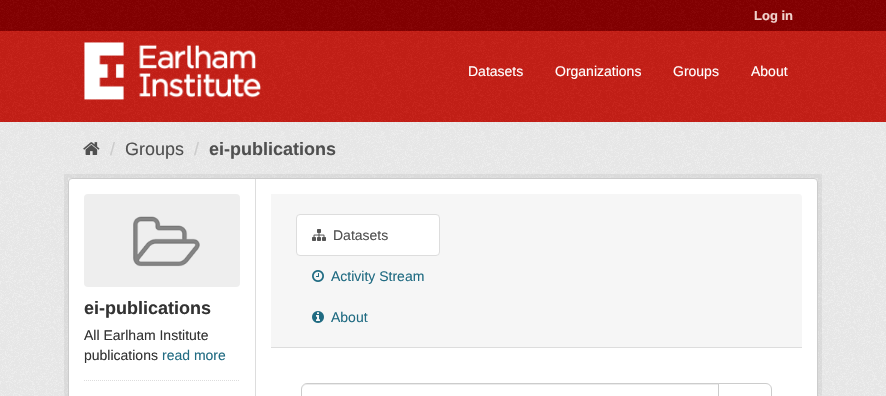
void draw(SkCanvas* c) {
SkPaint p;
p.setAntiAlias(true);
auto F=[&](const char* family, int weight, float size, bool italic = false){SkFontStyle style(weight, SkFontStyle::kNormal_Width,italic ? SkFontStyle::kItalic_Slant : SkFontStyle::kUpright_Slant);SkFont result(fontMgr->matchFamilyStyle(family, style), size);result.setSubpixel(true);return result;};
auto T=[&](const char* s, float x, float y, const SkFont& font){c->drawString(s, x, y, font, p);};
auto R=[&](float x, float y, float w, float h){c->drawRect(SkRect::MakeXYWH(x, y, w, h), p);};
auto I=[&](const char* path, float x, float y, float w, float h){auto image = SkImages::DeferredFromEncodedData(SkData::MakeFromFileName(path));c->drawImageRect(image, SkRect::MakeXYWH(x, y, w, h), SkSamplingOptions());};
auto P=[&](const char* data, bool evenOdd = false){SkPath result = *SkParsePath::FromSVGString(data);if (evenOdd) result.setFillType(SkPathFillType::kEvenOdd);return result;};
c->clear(0xff850001);
I("1.png",0,0,886,31);
auto f1 = F("Liberation Sans",700,13);
p.setColor(0xfff0d1cc);
T("Log in",754,20,f1);
p.setColor(0xffc61f16);
R(0,31,886,91);
I("2.png",0,31,886,91);
I("3.png",84,42,177,58);
auto f2 = F("Liberation Sans",400,14);
p.setColor(0xffffffff);
T("Datasets",468,76,f2);
T("Organizations",555,76,f2);
T("Groups",673,76,f2);
T("About",751,76,f2);
p.setColor(0xffeeeeee);
R(0,122,886,274);
I("4.png",0,122,886,274);
I("5.png",83,142,17,13);
auto f3 = F("Liberation Sans",400,18);
p.setColor(0xffcccccc);
T("/",110,155,f3);
p.setColor(0xff505050);
T("Groups",125,155,f3);
p.setColor(0xffcccccc);
T("/",194,155,f3);
auto f4 = F("Liberation Sans",700,18);
p.setColor(0xff505050);
T("ei-publications",209,155,f4);
p.setStroke(true);
p.setStrokeWidth(4);
p.setColor(0x0d000000);
c->drawRect(SkRect::MakeXYWH(66,176,754,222),p);
p.setStroke(false);
p.setColor(0xffffffff);
c->drawRoundRect(SkRect::MakeXYWH(68.5,178.5,749,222),3.5,3.5,p);
p.setStroke(true);
p.setStrokeWidth(1);
p.setColor(0xffcccccc);
c->drawRoundRect(SkRect::MakeXYWH(68.5,178.5,749,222),3.5,3.5,p);
p.setStroke(false);
p.setColor(0xffdddddd);
R(255,179,1,217);
p.setColor(0xfff6f6f6);
c->drawPath(P("M271 194h528c1.5 0 3 1.5 3 3v151h-531z"),p);
p.setColor(0xffdddddd);
R(271,347,531,1);
p.setColor(0xffffffff);
c->drawRoundRect(SkRect::MakeXYWH(296.5,214.5,143,41),3.5,3.5,p);
p.setStroke(true);
p.setColor(0xffdddddd);
c->drawRoundRect(SkRect::MakeXYWH(296.5,214.5,143,41),3.5,3.5,p);
I("6.png",312,229,14,12);
p.setStroke(false);
p.setColor(0xff505050);
T("Datasets",333,240,f2);
I("7.png",312,270,12,12);
p.setColor(0xff206b82);
T("Activity Stream",331,281,f2);
I("8.png",312,311,12,12);
T("About",331,322,f2);
p.setColor(0xffececec);
c->drawPath(P("M307 385h411v-1h-411c-3 0-5 3-5 6c0-3 2-5 5-5z"),p);
p.setStroke(true);
p.setColor(0xffcccccc);
c->drawPath(P("M307 383.5h411.5v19h-411.5c-3 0-5.5-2.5-5.5-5.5v-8c0-3 2.5-5.5 5.5-5.5z"),p);
p.setStroke(false);
p.setColor(0xffffffff);
c->drawPath(P("M718.5 383.5h47.5c3 0 5.5 2.5 5.5 5.5v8c0 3-2.5 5.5-5.5 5.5h-47.5z"),p);
p.setStroke(true);
p.setColor(0xffcccccc);
c->drawPath(P("M718.5 383.5h47.5c3 0 5.5 2.5 5.5 5.5v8c0 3-2.5 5.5-5.5 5.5h-47.5z"),p);
I("9.png",84,194,156,93);
p.setStroke(false);
p.setColor(0xff333333);
T("ei-publications",84,314,f4);
T("All Earlham Institute",84,340,f2);
T("publications",84,360,f2);
p.setColor(0xff206b82);
T("read more",162,360,f2);
p.setStroke(true);
p.setColor(0xffdddddd);
p.setPathEffect(SkDashPathEffect::Make({{1,1}}, 0));
c->drawPath(P("M84 380.5h156"),p);
p.setPathEffect(nullptr);
}
